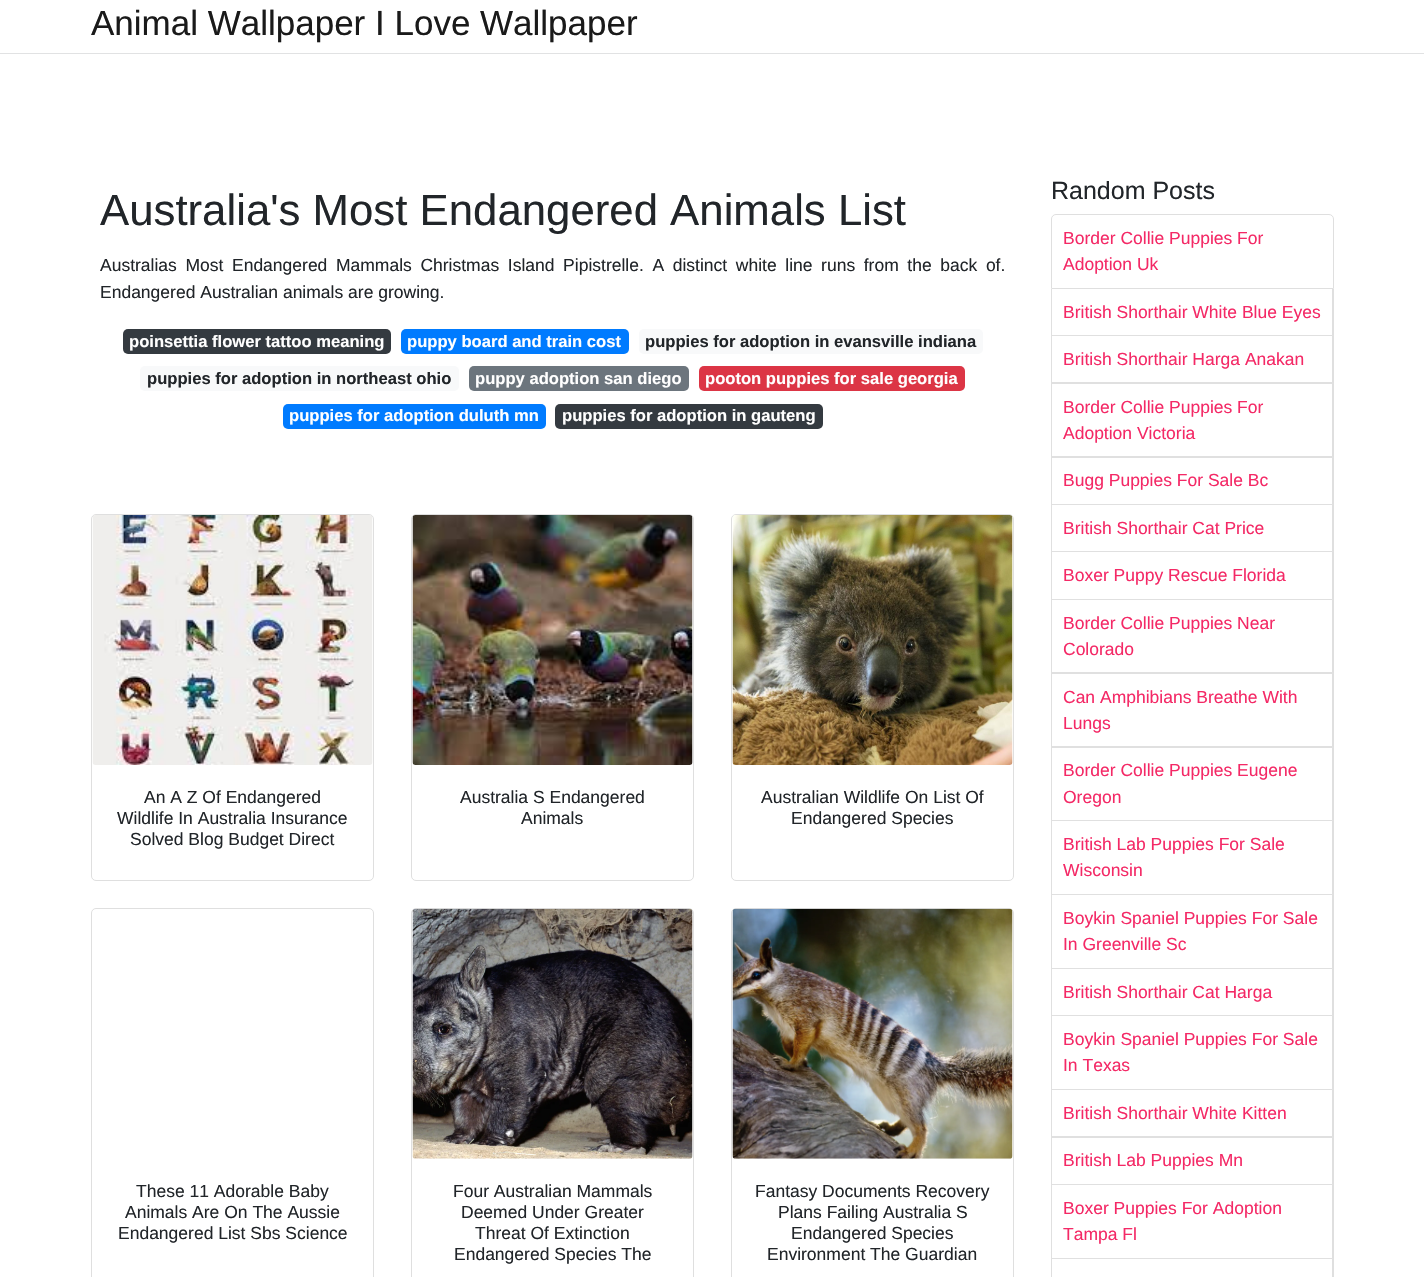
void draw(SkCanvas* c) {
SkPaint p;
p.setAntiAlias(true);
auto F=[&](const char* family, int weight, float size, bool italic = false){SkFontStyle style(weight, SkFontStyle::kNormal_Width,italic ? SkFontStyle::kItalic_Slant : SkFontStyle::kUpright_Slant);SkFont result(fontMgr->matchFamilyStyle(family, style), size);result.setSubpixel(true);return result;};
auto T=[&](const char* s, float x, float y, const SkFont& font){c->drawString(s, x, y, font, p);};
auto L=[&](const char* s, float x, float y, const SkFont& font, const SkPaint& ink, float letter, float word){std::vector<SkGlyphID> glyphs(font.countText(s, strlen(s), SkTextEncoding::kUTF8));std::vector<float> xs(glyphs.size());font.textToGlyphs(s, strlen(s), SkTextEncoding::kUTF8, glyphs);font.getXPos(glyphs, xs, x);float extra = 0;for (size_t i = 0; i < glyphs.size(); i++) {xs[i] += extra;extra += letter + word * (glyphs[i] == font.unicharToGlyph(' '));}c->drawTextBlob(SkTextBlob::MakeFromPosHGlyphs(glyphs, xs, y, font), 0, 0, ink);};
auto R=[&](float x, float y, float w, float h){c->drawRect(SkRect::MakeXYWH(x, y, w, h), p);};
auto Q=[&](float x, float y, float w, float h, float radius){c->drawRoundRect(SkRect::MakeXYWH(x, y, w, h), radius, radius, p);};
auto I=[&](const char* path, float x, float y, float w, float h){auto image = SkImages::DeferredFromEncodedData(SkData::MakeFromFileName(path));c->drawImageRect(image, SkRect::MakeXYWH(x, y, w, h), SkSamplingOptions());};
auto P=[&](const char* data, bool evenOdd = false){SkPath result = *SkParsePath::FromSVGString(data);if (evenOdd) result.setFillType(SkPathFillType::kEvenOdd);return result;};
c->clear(0xffffffff);
p.setColor(0xffe1e2e3);
R(0,53,1424,1);
auto f1 = F("Liberation Sans",400,35);
p.setColor(0xff1a1a1a);
T("Animal Wallpaper I Love Wallpaper",91,35,f1);
auto f2 = F("Liberation Sans",400,43.75);
p.setColor(0xff212529);
T("Australia's Most Endangered Animals List",100,225,f2);
auto f3 = F("Liberation Sans",400,17.5);
L("Australias Most Endangered Mammals Christmas Island Pipistrelle. A distinct white line runs from the back of.",100,271,f3,p,0,3.75);
T("Endangered Australian animals are growing.",100,298,f3);
p.setColor(0xff343a40);
Q(123,329,268,25,5);
auto f4 = F("Liberation Sans",700,16.6);
p.setColor(0xffffffff);
T("poinsettia flower tattoo meaning",129,347,f4);
p.setColor(0xff007bff);
Q(401,329,228,25,5);
p.setColor(0xffffffff);
T("puppy board and train cost",407,347,f4);
p.setColor(0xfff8f9fa);
Q(639,329,344,25,5);
p.setColor(0xff212529);
T("puppies for adoption in evansville indiana",645,347,f4);
p.setColor(0xfff8f9fa);
Q(140,366,319,25,5);
p.setColor(0xff212529);
T("puppies for adoption in northeast ohio",147,384,f4);
p.setColor(0xff6c757d);
Q(469,366,220,25,5);
p.setColor(0xffffffff);
T("puppy adoption san diego",475,384,f4);
p.setColor(0xffdc3545);
Q(699,366,266,25,5);
p.setColor(0xffffffff);
T("pooton puppies for sale georgia",705,384,f4);
p.setColor(0xff007bff);
Q(283,404,263,25,5);
p.setColor(0xffffffff);
T("puppies for adoption duluth mn",289,421,f4);
p.setColor(0xff343a40);
Q(555,404,268,25,5);
p.setColor(0xffffffff);
T("puppies for adoption in gauteng",562,421,f4);
p.setStroke(true);
p.setStrokeWidth(1);
p.setColor(0xffdfdfdf);
c->drawRoundRect(SkRect::MakeXYWH(91.5,514.5,282,366),4.5,4.5,p);
I("1.png",92,515,281,250);
p.setStroke(false);
p.setColor(0xff212529);
T("An A Z Of Endangered",144,803,f3);
T("Wildlife In Australia Insurance",117,824,f3);
T("Solved Blog Budget Direct",130,845,f3);
p.setStroke(true);
p.setColor(0xffdfdfdf);
c->drawRoundRect(SkRect::MakeXYWH(411.5,514.5,282,366),4.5,4.5,p);
I("2.png",412,515,281,250);
p.setStroke(false);
p.setColor(0xff212529);
T("Australia S Endangered",460,803,f3);
T("Animals",521,824,f3);
p.setStroke(true);
p.setColor(0xffdfdfdf);
c->drawRoundRect(SkRect::MakeXYWH(731.5,514.5,282,366),4.5,4.5,p);
I("3.png",732,515,281,250);
p.setStroke(false);
p.setColor(0xff212529);
T("Australian Wildlife On List Of",761,803,f3);
T("Endangered Species",791,824,f3);
p.setStroke(true);
p.setColor(0xffdfdfdf);
c->drawRoundRect(SkRect::MakeXYWH(91.5,908.5,282,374),4.5,4.5,p);
p.setStroke(false);
p.setColor(0xff212529);
T("These 11 Adorable Baby",136,1197,f3);
T("Animals Are On The Aussie",125,1218,f3);
T("Endangered List Sbs Science",118,1239,f3);
p.setStroke(true);
p.setColor(0xffdfdfdf);
c->drawRoundRect(SkRect::MakeXYWH(411.5,908.5,282,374),4.5,4.5,p);
I("4.png",412,908,281,251);
p.setStroke(false);
p.setColor(0xff212529);
T("Four Australian Mammals",453,1197,f3);
T("Deemed Under Greater",461,1218,f3);
T("Threat Of Extinction",475,1239,f3);
T("Endangered Species The",454,1260,f3);
p.setStroke(true);
p.setColor(0xffdfdfdf);
c->drawRoundRect(SkRect::MakeXYWH(731.5,908.5,282,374),4.5,4.5,p);
I("5.png",732,908,281,251);
p.setStroke(false);
p.setColor(0xff212529);
T("Fantasy Documents Recovery",755,1197,f3);
T("Plans Failing Australia S",778,1218,f3);
T("Endangered Species",791,1239,f3);
T("Environment The Guardian",767,1260,f3);
auto f5 = F("Liberation Sans",400,25);
T("Random Posts",1051,199,f5);
p.setStroke(true);
p.setColor(0xffdfdfdf);
c->drawPath(P("M1056 214.5h273c2.5 0 4.5 2 4.5 4.5v69.5h-282v-69.5c0-2.5 2-4.5 4.5-4.5z"),p);
p.setStroke(false);
p.setColor(0xfff42966);
T("Border Collie Puppies For",1063,244,f3);
T("Adoption Uk",1063,270,f3);
p.setColor(0xffdfdfdf);
c->drawPath(P("M1334 289v47l-2-1v-46z"),p);
p.setColor(0x1f000000);
c->drawPath(P("M1334 336h-283l1-1h280z"),p);
c->drawPath(P("M1051 336v-47h1v46z"),p);
p.setColor(0xfff42966);
T("British Shorthair White Blue Eyes",1063,318,f3);
p.setColor(0xffdfdfdf);
c->drawPath(P("M1334 336v48l-2-2v-46z"),p);
p.setColor(0x1f000000);
c->drawPath(P("M1334 384h-283l1-2h280z"),p);
c->drawPath(P("M1051 384v-48h1v46z"),p);
p.setColor(0xfff42966);
T("British Shorthair Harga Anakan",1063,365,f3);
p.setColor(0xffdfdfdf);
c->drawPath(P("M1334 384v74l-2-2v-72z"),p);
p.setColor(0x1f000000);
c->drawPath(P("M1334 458h-283l1-2h280z"),p);
c->drawPath(P("M1051 458v-74h1v72z"),p);
p.setColor(0xfff42966);
T("Border Collie Puppies For",1063,413,f3);
T("Adoption Victoria",1063,439,f3);
p.setColor(0xffdfdfdf);
c->drawPath(P("M1334 458v47l-2-1v-46z"),p);
p.setColor(0x1f000000);
c->drawPath(P("M1334 505h-283l1-1h280z"),p);
c->drawPath(P("M1051 505v-47h1v46z"),p);
p.setColor(0xfff42966);
T("Bugg Puppies For Sale Bc",1063,486,f3);
p.setColor(0xffdfdfdf);
c->drawPath(P("M1334 505v47l-2-1v-46z"),p);
p.setColor(0x1f000000);
c->drawPath(P("M1334 552h-283l1-1h280z"),p);
c->drawPath(P("M1051 552v-47h1v46z"),p);
p.setColor(0xfff42966);
T("British Shorthair Cat Price",1063,534,f3);
p.setColor(0xffdfdfdf);
c->drawPath(P("M1334 552v48l-2-1v-47z"),p);
p.setColor(0x1f000000);
c->drawPath(P("M1334 600h-283l1-1h280z"),p);
c->drawPath(P("M1051 600v-48h1v47z"),p);
p.setColor(0xfff42966);
T("Boxer Puppy Rescue Florida",1063,581,f3);
p.setColor(0xffdfdfdf);
c->drawPath(P("M1334 600v74l-2-2v-72z"),p);
p.setColor(0x1f000000);
c->drawPath(P("M1334 674h-283l1-2h280z"),p);
c->drawPath(P("M1051 674v-74h1v72z"),p);
p.setColor(0xfff42966);
T("Border Collie Puppies Near",1063,629,f3);
T("Colorado",1063,655,f3);
p.setColor(0xffdfdfdf);
c->drawPath(P("M1334 674v74l-2-2v-72z"),p);
p.setColor(0x1f000000);
c->drawPath(P("M1334 748h-283l1-2h280z"),p);
c->drawPath(P("M1051 748v-74h1v72z"),p);
p.setColor(0xfff42966);
T("Can Amphibians Breathe With",1063,703,f3);
T("Lungs",1063,729,f3);
p.setColor(0xffdfdfdf);
c->drawPath(P("M1334 748v73l-2-1v-72z"),p);
p.setColor(0x1f000000);
c->drawPath(P("M1334 821h-283l1-1h280z"),p);
c->drawPath(P("M1051 821v-73h1v72z"),p);
p.setColor(0xfff42966);
T("Border Collie Puppies Eugene",1063,776,f3);
T("Oregon",1063,803,f3);
p.setColor(0xffdfdfdf);
c->drawPath(P("M1334 821v74l-2-1v-73z"),p);
p.setColor(0x1f000000);
c->drawPath(P("M1334 895h-283l1-1h280z"),p);
c->drawPath(P("M1051 895v-74h1v73z"),p);
p.setColor(0xfff42966);
T("British Lab Puppies For Sale",1063,850,f3);
T("Wisconsin",1063,876,f3);
p.setColor(0xffdfdfdf);
c->drawPath(P("M1334 895v74l-2-1v-73z"),p);
p.setColor(0x1f000000);
c->drawPath(P("M1334 969h-283l1-1h280z"),p);
c->drawPath(P("M1051 969v-74h1v73z"),p);
p.setColor(0xfff42966);
T("Boykin Spaniel Puppies For Sale",1063,924,f3);
T("In Greenville Sc",1063,950,f3);
p.setColor(0xffdfdfdf);
c->drawPath(P("M1334 969v47l-2-1v-46z"),p);
p.setColor(0x1f000000);
c->drawPath(P("M1334 1016h-283l1-1h280z"),p);
c->drawPath(P("M1051 1016v-47h1v46z"),p);
p.setColor(0xfff42966);
T("British Shorthair Cat Harga",1063,998,f3);
p.setColor(0xffdfdfdf);
c->drawPath(P("M1334 1016v74l-2-1v-73z"),p);
p.setColor(0x1f000000);
c->drawPath(P("M1334 1090h-283l1-1h280z"),p);
c->drawPath(P("M1051 1090v-74h1v73z"),p);
p.setColor(0xfff42966);
T("Boykin Spaniel Puppies For Sale",1063,1045,f3);
T("In Texas",1063,1071,f3);
p.setColor(0xffdfdfdf);
c->drawPath(P("M1334 1090v48l-2-2v-46z"),p);
p.setColor(0x1f000000);
c->drawPath(P("M1334 1138h-283l1-2h280z"),p);
c->drawPath(P("M1051 1138v-48h1v46z"),p);
p.setColor(0xfff42966);
T("British Shorthair White Kitten",1063,1119,f3);
p.setColor(0xffdfdfdf);
c->drawPath(P("M1334 1138v47l-2-1v-46z"),p);
p.setColor(0x1f000000);
c->drawPath(P("M1334 1185h-283l1-1h280z"),p);
c->drawPath(P("M1051 1185v-47h1v46z"),p);
p.setColor(0xfff42966);
T("British Lab Puppies Mn",1063,1166,f3);
p.setColor(0xffdfdfdf);
c->drawPath(P("M1334 1185v74l-2-1v-73z"),p);
p.setColor(0x1f000000);
c->drawPath(P("M1334 1259h-283l1-1h280z"),p);
c->drawPath(P("M1051 1259v-74h1v73z"),p);
p.setColor(0xfff42966);
T("Boxer Puppies For Adoption",1063,1214,f3);
T("Tampa Fl",1063,1240,f3);
p.setColor(0xffdfdfdf);
c->drawPath(P("M1334 1259v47l-2-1v-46z"),p);
c->drawPath(P("M1051 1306v-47h1v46z"),p);
}
